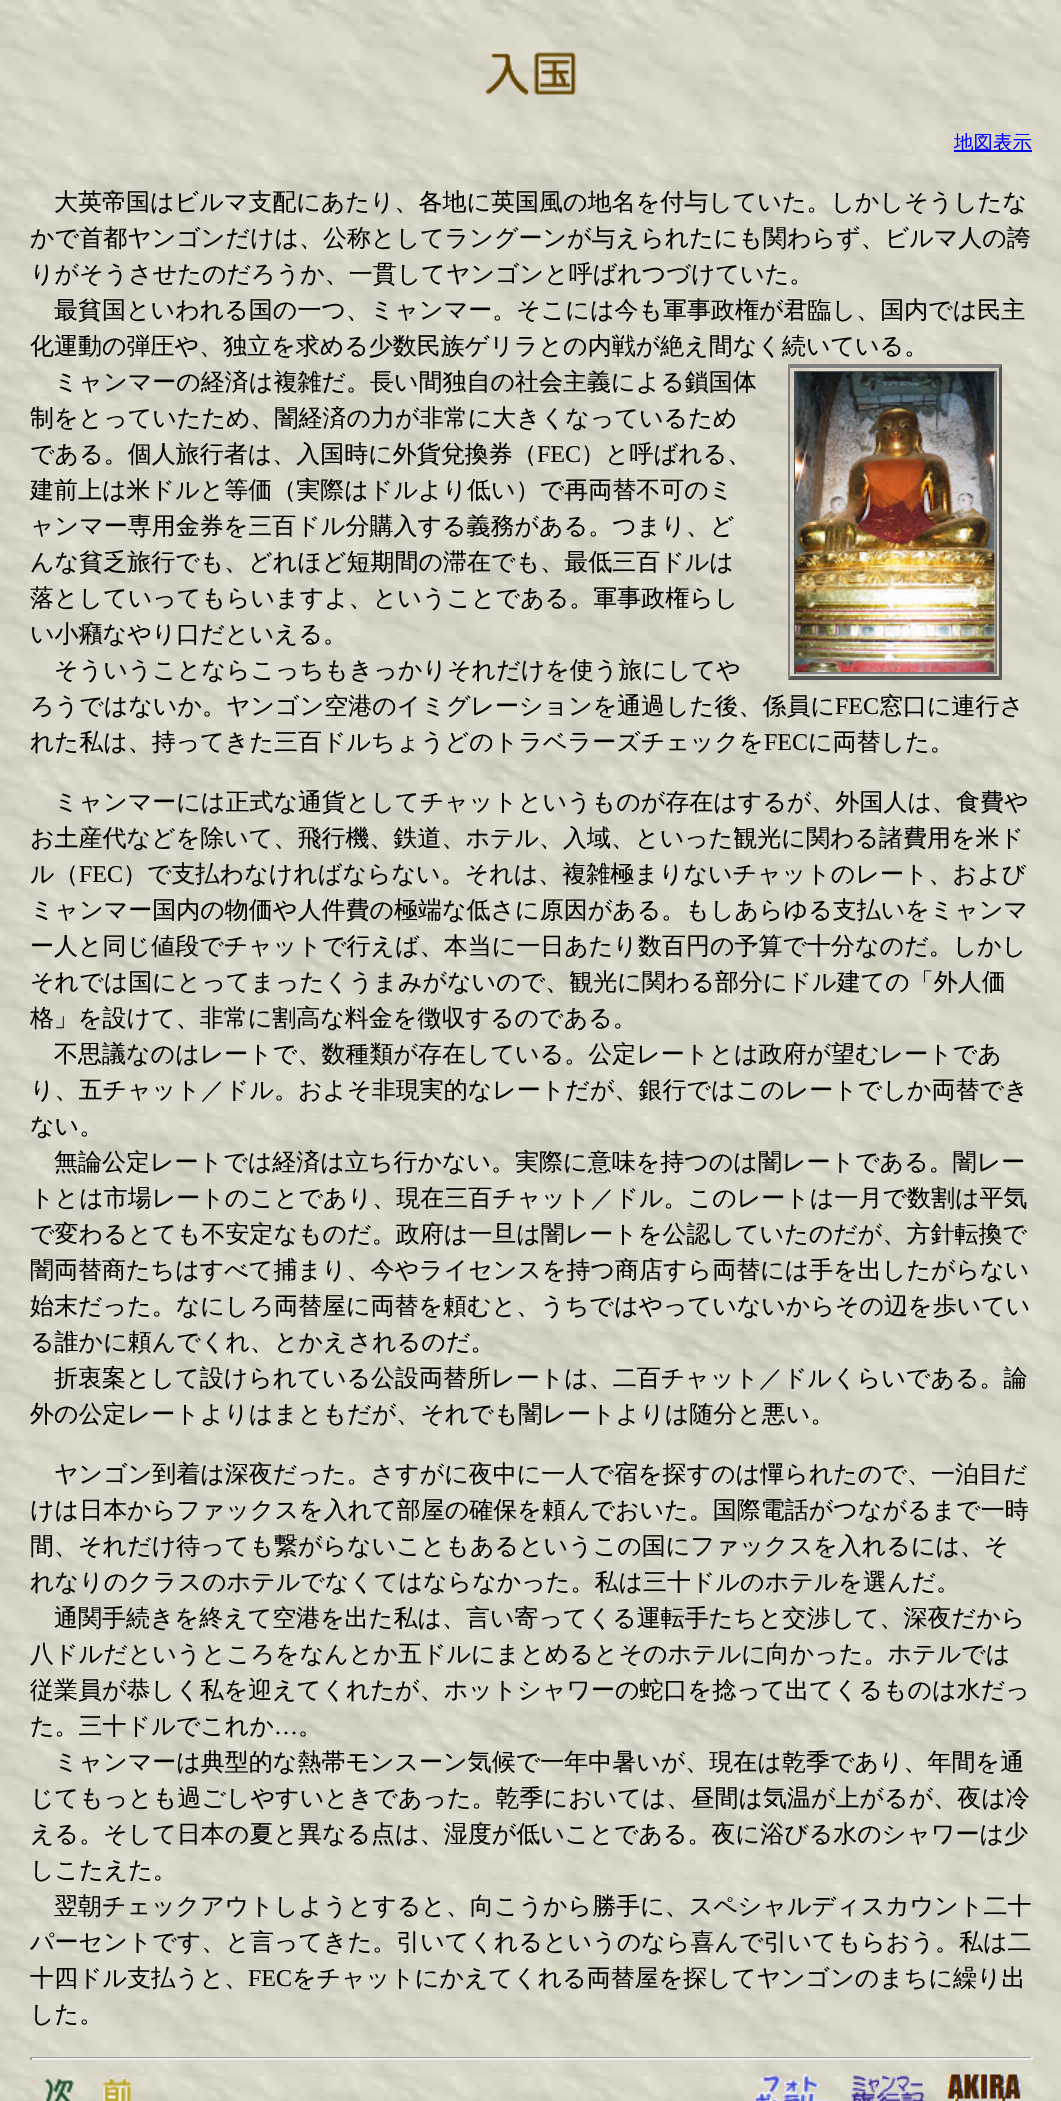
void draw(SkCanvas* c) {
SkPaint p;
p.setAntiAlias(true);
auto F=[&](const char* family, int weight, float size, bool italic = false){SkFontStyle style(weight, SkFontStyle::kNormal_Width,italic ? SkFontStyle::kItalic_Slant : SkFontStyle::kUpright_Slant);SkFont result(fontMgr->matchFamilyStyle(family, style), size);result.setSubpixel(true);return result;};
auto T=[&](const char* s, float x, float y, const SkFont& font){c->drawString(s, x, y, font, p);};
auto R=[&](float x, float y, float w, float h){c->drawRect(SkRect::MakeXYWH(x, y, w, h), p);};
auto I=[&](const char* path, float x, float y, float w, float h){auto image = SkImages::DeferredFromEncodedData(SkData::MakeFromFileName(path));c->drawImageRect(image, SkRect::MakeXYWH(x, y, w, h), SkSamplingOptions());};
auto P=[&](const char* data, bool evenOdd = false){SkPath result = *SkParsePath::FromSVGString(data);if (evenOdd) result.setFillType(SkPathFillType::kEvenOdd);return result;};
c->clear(0xffffffff);
I("1.png",0,0,1061,2101);
I("2.png",485,52,92,43);
p.setColor(0xff0000ff);
R(954,150,78,2);
auto f1 = F("WenQuanYi Zen Hei",500,19.5);
T("地図表示",954,149,f1);
auto f2 = F("WenQuanYi Zen Hei",500,24);
p.setColor(0xff000000);
T("大英帝国はビルマ支配にあたり、各地に英国風の地名を付与していた。しかしそうしたな",54,210,f2);
T("かで首都ヤンゴンだけは、公称としてラングーンが与えられたにも関わらず、ビルマ人の誇",30,246,f2);
T("りがそうさせたのだろうか、一貫してヤンゴンと呼ばれつづけていた。",30,282,f2);
T("最貧国といわれる国の一つ、ミャンマー。そこには今も軍事政権が君臨し、国内では民主",54,318,f2);
T("化運動の弾圧や、独立を求める少数民族ゲリラとの内戦が絶え間なく続いている。",30,354,f2);
T("ミャンマーの経済は複雑だ。長い間独自の社会主義による鎖国体",54,390,f2);
p.setColor(0xff808080);
c->drawPath(P("M788 364h214l-3 4h-209z"),p);
p.setColor(0xff555555);
c->drawPath(P("M1002 364v316l-3-4v-308z"),p);
c->drawPath(P("M1002 680h-214l2-4h209z"),p);
p.setColor(0xff808080);
c->drawPath(P("M788 680v-316l2 4v308z"),p);
p.setColor(0xff555555);
R(794,371,202,2);
p.setColor(0xff808080);
R(995,371,2,303);
R(794,672,202,2);
p.setColor(0xff555555);
R(794,371,2,303);
I("3.png",795,372,200,300);
p.setColor(0xff000000);
T("制をとっていたため、闇経済の力が非常に大きくなっているため",30,426,f2);
T("である。個人旅行者は、入国時に外貨兌換券（",30,462,f2);
auto f3 = F("Liberation Serif",400,24);
T("FEC",537,462,f3);
T("）と呼ばれる、",581,462,f2);
T("建前上は米ドルと等価（実際はドルより低い）で再両替不可のミ",30,498,f2);
T("ャンマー専用金券を三百ドル分購入する義務がある。つまり、ど",30,534,f2);
T("んな貧乏旅行でも、どれほど短期間の滞在でも、最低三百ドルは",30,570,f2);
T("落としていってもらいますよ、ということである。軍事政権らし",30,606,f2);
T("い小癪なやり口だといえる。",30,642,f2);
T("そういうことならこっちもきっかりそれだけを使う旅にしてや",54,678,f2);
T("ろうではないか。ヤンゴン空港のイミグレーションを通過した後、係員に",30,714,f2);
T("FEC",835,714,f3);
T("窓口に連行さ",879,714,f2);
T("れた私は、持ってきた三百ドルちょうどのトラベラーズチェックを",30,750,f2);
T("FEC",764,750,f3);
T("に両替した。",808,750,f2);
T("ミャンマーには正式な通貨としてチャットというものが存在はするが、外国人は、食費や",54,810,f2);
T("お土産代などを除いて、飛行機、鉄道、ホテル、入域、といった観光に関わる諸費用を米ド",30,846,f2);
T("ル（",30,882,f2);
T("FEC",79,882,f3);
T("）で支払わなければならない。それは、複雑極まりないチャットのレート、および",123,882,f2);
T("ミャンマー国内の物価や人件費の極端な低さに原因がある。もしあらゆる支払いをミャンマ",30,918,f2);
T("ー人と同じ値段でチャットで行えば、本当に一日あたり数百円の予算で十分なのだ。しかし",30,954,f2);
T("それでは国にとってまったくうまみがないので、観光に関わる部分にドル建ての「外人価",30,990,f2);
T("格」を設けて、非常に割高な料金を徴収するのである。",30,1026,f2);
T("不思議なのはレートで、数種類が存在している。公定レートとは政府が望むレートであ",54,1062,f2);
T("り、五チャット／ドル。およそ非現実的なレートだが、銀行ではこのレートでしか両替でき",30,1098,f2);
T("ない。",30,1134,f2);
T("無論公定レートでは経済は立ち行かない。実際に意味を持つのは闇レートである。闇レー",54,1170,f2);
T("トとは市場レートのことであり、現在三百チャット／ドル。このレートは一月で数割は平気",30,1206,f2);
T("で変わるとても不安定なものだ。政府は一旦は闇レートを公認していたのだが、方針転換で",30,1242,f2);
T("闇両替商たちはすべて捕まり、今やライセンスを持つ商店すら両替には手を出したがらない",30,1278,f2);
T("始末だった。なにしろ両替屋に両替を頼むと、うちではやっていないからその辺を歩いてい",30,1314,f2);
T("る誰かに頼んでくれ、とかえされるのだ。",30,1350,f2);
T("折衷案として設けられている公設両替所レートは、二百チャット／ドルくらいである。論",54,1386,f2);
T("外の公定レートよりはまともだが、それでも闇レートよりは随分と悪い。",30,1422,f2);
T("ヤンゴン到着は深夜だった。さすがに夜中に一人で宿を探すのは憚られたので、一泊目だ",54,1482,f2);
T("けは日本からファックスを入れて部屋の確保を頼んでおいた。国際電話がつながるまで一時",30,1518,f2);
T("間、それだけ待っても繋がらないこともあるというこの国にファックスを入れるには、そ",30,1554,f2);
T("れなりのクラスのホテルでなくてはならなかった。私は三十ドルのホテルを選んだ。",30,1590,f2);
T("通関手続きを終えて空港を出た私は、言い寄ってくる運転手たちと交渉して、深夜だから",54,1626,f2);
T("八ドルだというところをなんとか五ドルにまとめるとそのホテルに向かった。ホテルでは",30,1662,f2);
T("従業員が恭しく私を迎えてくれたが、ホットシャワーの蛇口を捻って出てくるものは水だっ",30,1698,f2);
T("た。三十ドルでこれか",30,1734,f2);
T("…",274,1734,f3);
T("。",298,1734,f2);
T("ミャンマーは典型的な熱帯モンスーン気候で一年中暑いが、現在は乾季であり、年間を通",54,1770,f2);
T("じてもっとも過ごしやすいときであった。乾季においては、昼間は気温が上がるが、夜は冷",30,1806,f2);
T("える。そして日本の夏と異なる点は、湿度が低いことである。夜に浴びる水のシャワーは少",30,1842,f2);
T("しこたえた。",30,1878,f2);
T("翌朝チェックアウトしようとすると、向こうから勝手に、スペシャルディスカウント二十",54,1914,f2);
T("パーセントです、と言ってきた。引いてくれるというのなら喜んで引いてもらおう。私は二",30,1950,f2);
T("十四ドル支払うと、",30,1986,f2);
T("FEC",248,1986,f3);
T("をチャットにかえてくれる両替屋を探してヤンゴンのまちに繰り出",292,1986,f2);
T("した。",30,2022,f2);
p.setColor(0xff9f9f9f);
R(30,2057,1002,1);
p.setColor(0xffeeeeee);
R(1031,2057,2,3);
R(30,2058,1002,2);
p.setColor(0xff9f9f9f);
R(30,2057,2,3);
I("4.png",44,2078,30,23);
I("5.png",103,2077,30,24);
I("6.png",754,2074,76,27);
I("7.png",850,2075,75,26);
I("8.png",947,2074,74,27);
}
